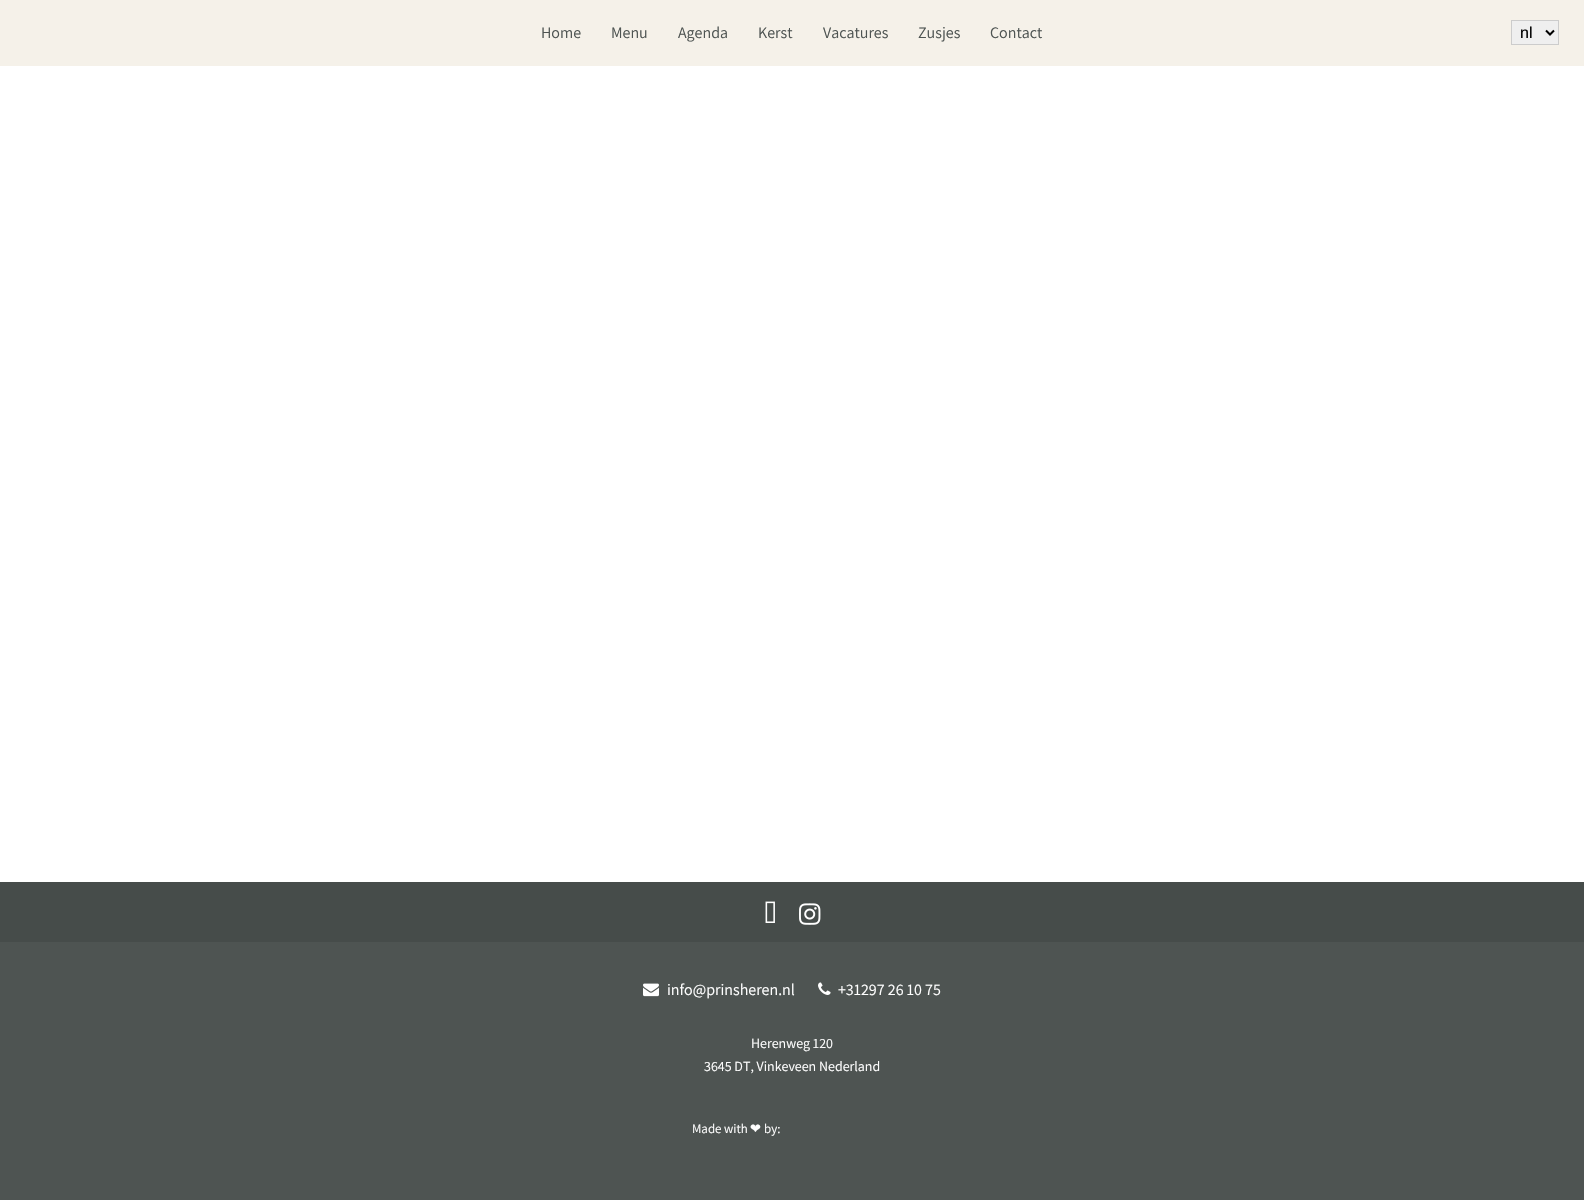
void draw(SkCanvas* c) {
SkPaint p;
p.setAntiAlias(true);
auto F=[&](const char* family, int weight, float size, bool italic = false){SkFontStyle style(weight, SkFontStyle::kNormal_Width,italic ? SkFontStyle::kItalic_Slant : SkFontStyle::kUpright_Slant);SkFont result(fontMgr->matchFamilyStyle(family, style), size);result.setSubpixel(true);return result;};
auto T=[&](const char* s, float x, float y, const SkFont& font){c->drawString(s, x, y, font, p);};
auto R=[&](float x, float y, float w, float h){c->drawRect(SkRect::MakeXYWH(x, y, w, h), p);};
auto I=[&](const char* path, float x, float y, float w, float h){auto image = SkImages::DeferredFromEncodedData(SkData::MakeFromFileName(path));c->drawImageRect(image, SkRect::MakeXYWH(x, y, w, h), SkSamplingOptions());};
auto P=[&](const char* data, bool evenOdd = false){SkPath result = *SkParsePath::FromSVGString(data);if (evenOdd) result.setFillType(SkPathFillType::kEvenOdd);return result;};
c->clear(0xffffffff);
p.setColor(0xfff5f1e9);
R(0,0,1584,66);
auto f1 = F("Assistant",400,16);
p.setColor(0xff4e5452);
T("Home",541,38,f1);
T("Menu",611,38,f1);
T("Agenda",678,38,f1);
T("Kerst",758,38,f1);
T("Vacatures",823,38,f1);
T("Zusjes",918,38,f1);
T("Contact",990,38,f1);
p.setColor(0xffefefef);
c->drawRect(SkRect::MakeXYWH(1511.5,20.5,47,24),p);
p.setStroke(true);
p.setStrokeWidth(1);
p.setColor(0xffcccccc);
c->drawRect(SkRect::MakeXYWH(1511.5,20.5,47,24),p);
p.setStrokeWidth(2);
p.setColor(0xff000000);
c->drawPath(P("M1546 30.5l4 4l4-4"),p);
auto f2 = F("Liberation Sans",400,16);
p.setStroke(false);
T("nl",1520,38,f2);
p.setColor(0xff4e5452);
R(0,942,1584,258);
p.setColor(0xff464c4a);
R(0,882,1584,60);
I("1.png",765,901,10,22);
I("2.png",799,903,22,22);
I("3.png",643,983,16,14);
p.setColor(0xffffffff);
T("info@prinsheren.nl",667,995,f1);
I("4.png",818,982,13,13);
T("+31297 26 10 75",838,995,f1);
auto f3 = F("Assistant",400,14);
T("Herenweg 120",751,1048,f3);
T("3645 DT, Vinkeveen Nederland",704,1071,f3);
auto f4 = F("Assistant",400,13);
T("Made with",692,1133,f4);
auto f5 = F("DejaVu Sans",400,13);
T("❤",750,1133,f5);
T("by:",764,1133,f4);
}
